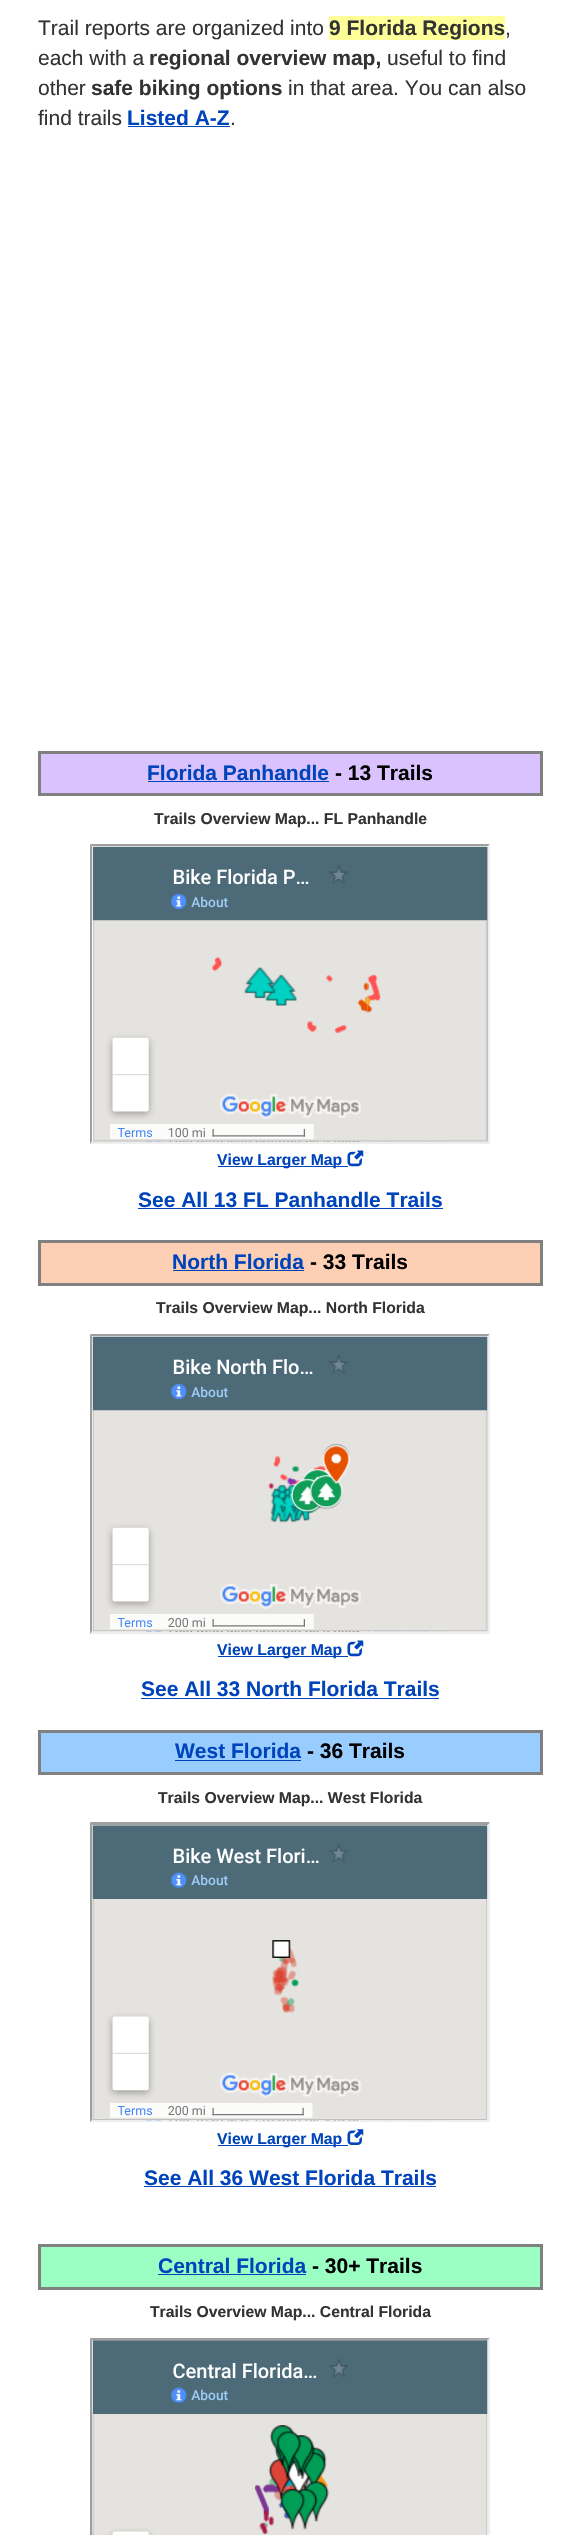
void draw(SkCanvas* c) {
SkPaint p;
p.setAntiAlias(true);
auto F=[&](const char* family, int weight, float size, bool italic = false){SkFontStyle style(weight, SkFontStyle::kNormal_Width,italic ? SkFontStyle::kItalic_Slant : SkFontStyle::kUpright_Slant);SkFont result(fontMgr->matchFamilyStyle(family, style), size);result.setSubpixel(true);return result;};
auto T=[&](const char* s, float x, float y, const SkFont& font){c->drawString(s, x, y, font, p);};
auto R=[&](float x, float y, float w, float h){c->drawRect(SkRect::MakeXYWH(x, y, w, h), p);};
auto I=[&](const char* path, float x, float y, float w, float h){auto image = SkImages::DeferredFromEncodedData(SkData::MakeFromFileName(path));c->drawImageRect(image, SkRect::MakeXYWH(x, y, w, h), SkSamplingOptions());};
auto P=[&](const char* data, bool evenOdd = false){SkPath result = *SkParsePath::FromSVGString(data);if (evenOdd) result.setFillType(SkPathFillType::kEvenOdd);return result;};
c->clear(0xffffffff);
auto f1 = F("Liberation Sans",400,21);
p.setColor(0xff333333);
T("Trail reports are organized into",38,35,f1);
p.setColor(0xffffff99);
R(329,16,176,24);
auto f2 = F("Liberation Sans",700,21);
p.setColor(0xff333333);
T("9 Florida Regions",329,35,f2);
T(",",505,35,f1);
T("each with a",38,65,f1);
T("regional overview map,",149,65,f2);
T("useful to find",387,65,f1);
T("other",38,95,f1);
T("safe biking options",91,95,f2);
T("in that area. You can also",288,95,f1);
T("find trails",38,125,f1);
p.setColor(0xff0044bb);
T("Listed A-Z",127,125,f2);
R(128,126,102,1);
p.setColor(0xff333333);
T(".",230,125,f1);
p.setColor(0xffd9c2fe);
c->drawRect(SkRect::MakeXYWH(39.5,752.5,502,42),p);
p.setStroke(true);
p.setStrokeWidth(3);
p.setColor(0xff808080);
c->drawRect(SkRect::MakeXYWH(39.5,752.5,502,42),p);
p.setStroke(false);
p.setColor(0xff0044bb);
T("Florida Panhandle",147,780,f2);
R(148,781,181,1);
p.setColor(0xff000000);
T("- 13 Trails",335,780,f2);
auto f3 = F("Liberation Sans",700,15.75);
p.setColor(0xff333333);
T("Trails Overview Map... FL Panhandle",154,824,f3);
p.setColor(0xff9f9f9f);
c->drawPath(P("M90 844h400l-2 2h-396z"),p);
p.setColor(0xffeeeeee);
c->drawPath(P("M490 844v300l-2-3v-295z"),p);
c->drawPath(P("M490 1144h-400l2-3h396z"),p);
p.setColor(0xff9f9f9f);
c->drawPath(P("M90 1144v-300l2 2v295z"),p);
I("1.png",92,846,396,296);
p.setColor(0xff0044bb);
R(218,1166,130,1);
T("View Larger Map",217,1165,f3);
I("2.png",347,1150,17,17);
T("See All 13 FL Panhandle Trails",138,1207,f2);
R(138,1208,305,1);
p.setColor(0xfffdd0b5);
c->drawRect(SkRect::MakeXYWH(39.5,1241.5,502,43),p);
p.setStroke(true);
p.setColor(0xff808080);
c->drawRect(SkRect::MakeXYWH(39.5,1241.5,502,43),p);
p.setStroke(false);
p.setColor(0xff0044bb);
T("North Florida",172,1269,f2);
R(173,1270,131,1);
p.setColor(0xff000000);
T("- 33 Trails",310,1269,f2);
p.setColor(0xff333333);
T("Trails Overview Map... North Florida",156,1313,f3);
p.setColor(0xff9f9f9f);
c->drawPath(P("M90 1334h400l-2 2h-396z"),p);
p.setColor(0xffeeeeee);
c->drawPath(P("M490 1334v300l-2-3v-295z"),p);
c->drawPath(P("M490 1634h-400l2-3h396z"),p);
p.setColor(0xff9f9f9f);
c->drawPath(P("M90 1634v-300l2 2v295z"),p);
I("3.png",92,1336,396,296);
p.setColor(0xff0044bb);
R(218,1656,130,1);
T("View Larger Map",217,1655,f3);
I("2.png",347,1640,17,17);
T("See All 33 North Florida Trails",141,1696,f2);
R(141,1698,298,1);
p.setColor(0xff99ccff);
c->drawRect(SkRect::MakeXYWH(39.5,1731.5,502,42),p);
p.setStroke(true);
p.setColor(0xff808080);
c->drawRect(SkRect::MakeXYWH(39.5,1731.5,502,42),p);
p.setStroke(false);
p.setColor(0xff0044bb);
T("West Florida",175,1758,f2);
R(175,1760,126,1);
p.setColor(0xff000000);
T("- 36 Trails",307,1758,f2);
p.setColor(0xff333333);
T("Trails Overview Map... West Florida",158,1803,f3);
p.setColor(0xff9f9f9f);
c->drawPath(P("M90 1822h400l-2 3h-396z"),p);
p.setColor(0xffeeeeee);
c->drawPath(P("M490 1822v300l-2-2v-295z"),p);
c->drawPath(P("M490 2122h-400l2-2h396z"),p);
p.setColor(0xff9f9f9f);
c->drawPath(P("M90 2122v-300l2 3v295z"),p);
I("4.png",92,1825,396,296);
p.setColor(0xff0044bb);
R(218,2145,130,1);
T("View Larger Map",217,2144,f3);
I("5.png",347,2129,17,16);
T("See All 36 West Florida Trails",144,2185,f2);
R(144,2186,292,1);
p.setColor(0xff9bffc4);
c->drawRect(SkRect::MakeXYWH(39.5,2245.5,502,43),p);
p.setStroke(true);
p.setColor(0xff808080);
c->drawRect(SkRect::MakeXYWH(39.5,2245.5,502,43),p);
p.setStroke(false);
p.setColor(0xff0044bb);
T("Central Florida",158,2273,f2);
R(158,2274,148,1);
p.setColor(0xff000000);
T("- 30+ Trails",312,2273,f2);
p.setColor(0xff333333);
T("Trails Overview Map... Central Florida",150,2317,f3);
p.setColor(0xff9f9f9f);
c->drawPath(P("M90 2338h400l-2 2h-396z"),p);
c->drawPath(P("M90 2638v-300l2 2v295z"),p);
I("6.png",92,2340,396,195);
p.setColor(0xffeeeeee);
c->drawPath(P("M490 2338v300l-2-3v-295z"),p);
}
